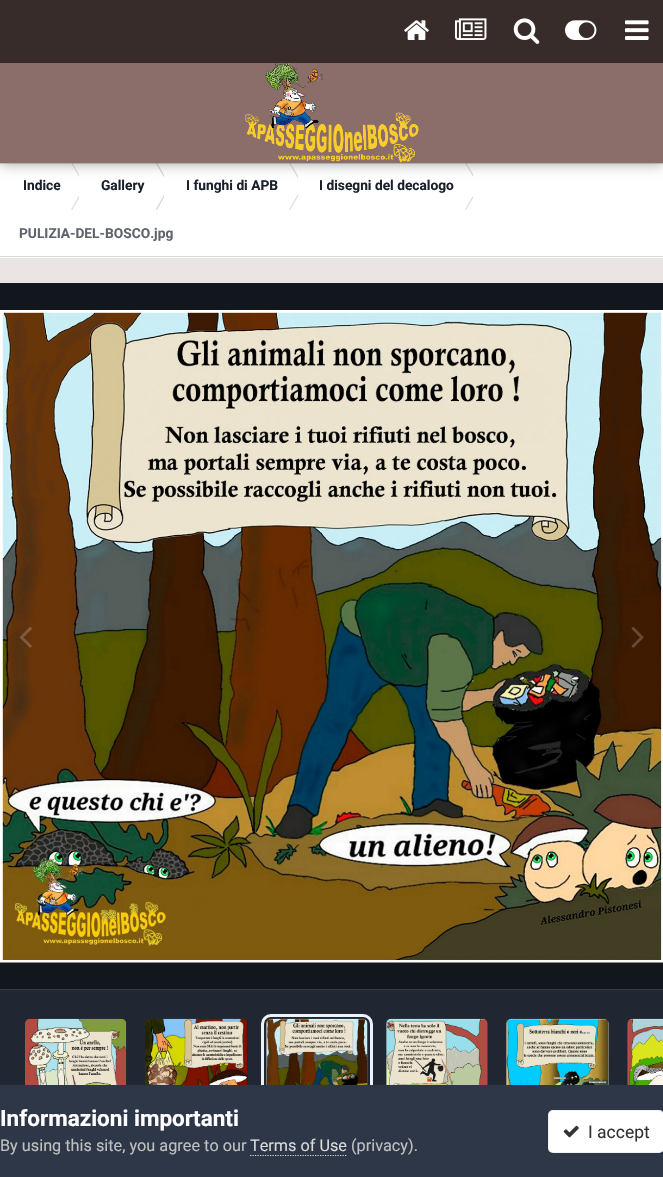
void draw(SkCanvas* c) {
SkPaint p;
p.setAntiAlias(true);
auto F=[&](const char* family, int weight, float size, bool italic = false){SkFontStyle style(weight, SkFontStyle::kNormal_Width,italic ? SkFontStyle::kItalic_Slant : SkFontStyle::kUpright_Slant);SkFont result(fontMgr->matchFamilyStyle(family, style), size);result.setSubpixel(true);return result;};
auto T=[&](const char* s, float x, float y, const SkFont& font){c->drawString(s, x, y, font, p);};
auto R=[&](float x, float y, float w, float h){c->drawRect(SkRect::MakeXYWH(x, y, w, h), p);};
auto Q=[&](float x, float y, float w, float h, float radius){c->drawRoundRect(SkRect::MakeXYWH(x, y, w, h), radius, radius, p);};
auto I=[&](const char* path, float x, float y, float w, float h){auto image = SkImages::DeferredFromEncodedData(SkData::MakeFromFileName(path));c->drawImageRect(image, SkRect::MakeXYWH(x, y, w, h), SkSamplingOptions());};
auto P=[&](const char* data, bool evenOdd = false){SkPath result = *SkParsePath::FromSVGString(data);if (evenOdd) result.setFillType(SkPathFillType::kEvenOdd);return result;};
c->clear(0xffeae5e4);
p.setColor(0xffffffff);
R(0,163,663,95);
c->save();
c->clipRect(SkRect::MakeXYWH(0,163,79,47));
p.setColor(0xffd7d8d9);
c->drawPath(P("M71 162.5h1l14 23.5h-1.5zm0 47.5h1l14-24h-1.5z"),p);
c->restore();
c->save();
c->clipRect(SkRect::MakeXYWH(79,163,85,47));
c->drawPath(P("M155.5 162.5h1.5l13.5 23.5h-1.5zm0 47.5h1.5l13.5-24h-1.5z"),p);
c->restore();
c->save();
c->clipRect(SkRect::MakeXYWH(164,163,134,47));
c->drawPath(P("M289 162.5h1l14 23.5h-1.5zm0 47.5h1l14-24h-1.5z"),p);
c->restore();
c->save();
c->clipRect(SkRect::MakeXYWH(298,163,175,47));
c->drawPath(P("M465 162.5h1l14 23.5h-1.5zm0 47.5h1l14-24h-1.5z"),p);
c->restore();
p.setColor(0x33353c41);
R(0,163,663,1);
p.setColor(0x59000000);
p.setMaskFilter(SkMaskFilter::MakeBlur(kNormal_SkBlurStyle, 6));
c->drawRect(SkRect::MakeXYWH(0,1,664,163),p);
p.setMaskFilter(nullptr);
p.setColor(0xff8b6e6a);
R(0,63,663,100);
p.setColor(0xff382c2a);
R(0,0,663,63);
I("1.png",404,20,25,20);
I("2.png",455,18,32,22);
I("3.png",513,18,27,26);
I("4.png",565,20,32,20);
I("5.png",625,20,24,20);
I("6.png",245,62,174,101);
p.setColor(0xffd7d8d9);
R(0,256,663,1);
auto f1 = F("Roboto",700,13.75);
p.setColor(0xff1a202c);
T("Indice",23,190,f1);
T("Gallery",101,190,f1);
T("I funghi di APB",186,190,f1);
T("I disegni del decalogo",319,190,f1);
p.setColor(0xff5f636b);
T("PULIZIA-DEL-BOSCO.jpg",19,238,f1);
p.setColor(0xff12161d);
R(0,283,663,706);
I("7.png",0,310,663,653);
I("8.png",19,627,13,21);
I("9.png",631,627,13,21);
p.setColor(0xff202732);
R(0,990,663,95);
p.setColor(0xff363d47);
R(0,989,663,1);
I("10.png",25,1018,102,67);
p.setColor(0xff141414);
Q(145,1019,103,100,5);
p.setColor(0x4d2d3748);
Q(145,1019,103,100,5);
I("11.png",145,1018,103,67);
p.setColor(0xff141414);
Q(266,1019,102,100,5);
p.setColor(0x4d2d3748);
Q(266,1019,102,100,5);
p.setStroke(true);
p.setStrokeWidth(3);
p.setColor(0xffedf2f7);
c->drawRoundRect(SkRect::MakeXYWH(262.5,1015.5,109,107),8.5,8.5,p);
I("12.png",266,1018,102,67);
p.setStroke(false);
p.setColor(0xff141414);
Q(386,1019,102,100,5);
p.setColor(0x4d2d3748);
Q(386,1019,102,100,5);
I("13.png",386,1018,102,67);
p.setColor(0xff141414);
Q(506,1019,103,100,5);
p.setColor(0x4d2d3748);
Q(506,1019,103,100,5);
I("14.png",506,1018,103,67);
I("15.png",627,1018,36,67);
p.setColor(0xff2d3748);
R(0,1085,663,92);
auto f2 = F("Roboto",700,22.5);
p.setColor(0xffffffff);
T("Informazioni importanti",0,1126,f2);
auto f3 = F("Roboto",400,16.25);
p.setColor(0xffc0c0c0);
T("By using this site, you agree to our",0,1151,f3);
p.setColor(0xffdadada);
T("Terms of Use",250,1151,f3);
p.setStroke(true);
p.setStrokeWidth(1.2);
p.setPathEffect(SkDashPathEffect::Make({{1.25f,1.25f}}, 0));
c->drawPath(P("M250 1155.5h97.5"),p);
p.setPathEffect(nullptr);
p.setStroke(false);
p.setColor(0xffc0c0c0);
T("(privacy).",351,1151,f3);
p.setColor(0xffffffff);
Q(548,1110,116,43,5);
p.setStroke(true);
p.setStrokeWidth(1);
p.setColor(0x12333333);
c->drawRoundRect(SkRect::MakeXYWH(548.5,1110.5,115,42),4.5,4.5,p);
I("16.png",563,1125,16,13);
auto f4 = F("Roboto",400,17.5);
p.setStroke(false);
p.setColor(0xff333333);
T("I accept",588,1138,f4);
}
